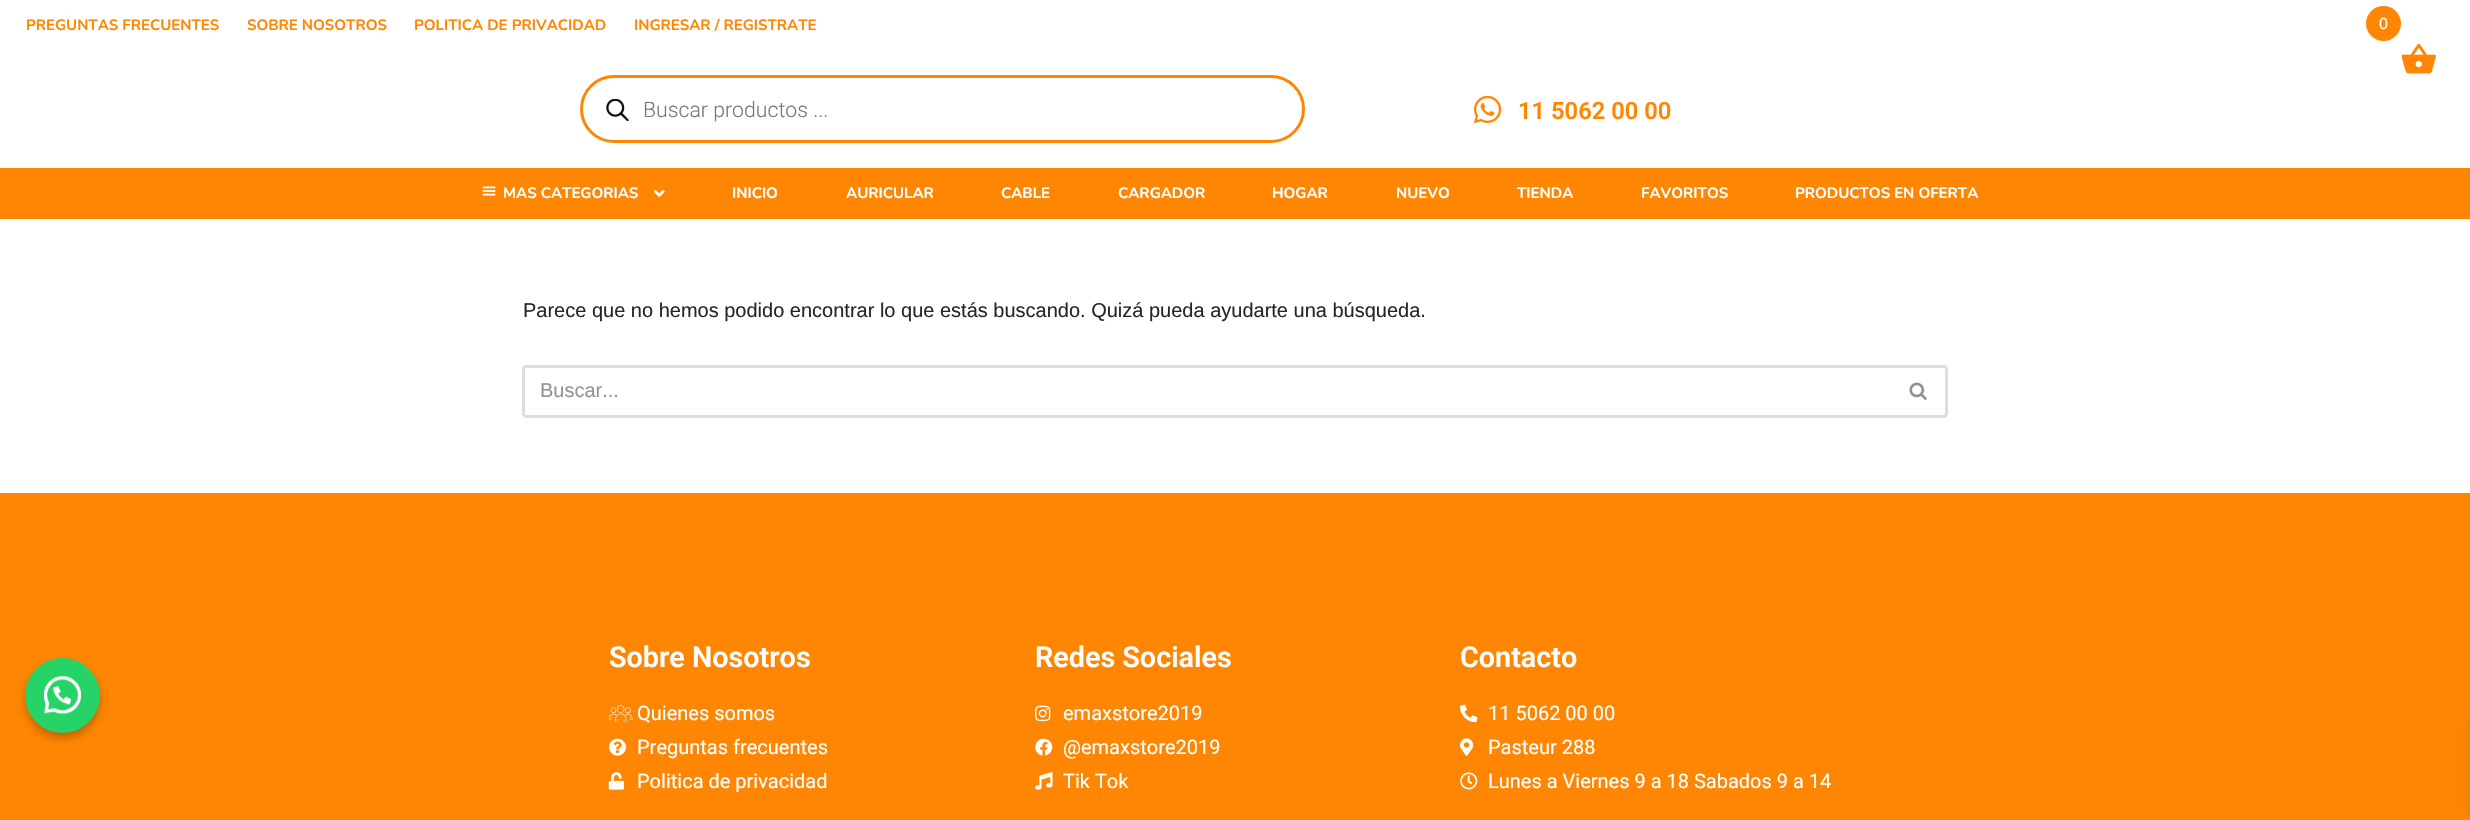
void draw(SkCanvas* c) {
SkPaint p;
p.setAntiAlias(true);
auto F=[&](const char* family, int weight, float size, bool italic = false){SkFontStyle style(weight, SkFontStyle::kNormal_Width,italic ? SkFontStyle::kItalic_Slant : SkFontStyle::kUpright_Slant);SkFont result(fontMgr->matchFamilyStyle(family, style), size);result.setSubpixel(true);return result;};
auto T=[&](const char* s, float x, float y, const SkFont& font){c->drawString(s, x, y, font, p);};
auto R=[&](float x, float y, float w, float h){c->drawRect(SkRect::MakeXYWH(x, y, w, h), p);};
auto I=[&](const char* path, float x, float y, float w, float h){auto image = SkImages::DeferredFromEncodedData(SkData::MakeFromFileName(path));c->drawImageRect(image, SkRect::MakeXYWH(x, y, w, h), SkSamplingOptions());};
auto P=[&](const char* data, bool evenOdd = false){SkPath result = *SkParsePath::FromSVGString(data);if (evenOdd) result.setFillType(SkPathFillType::kEvenOdd);return result;};
c->clear(0xffffffff);
auto f1 = F("Nunito",700,15);
p.setColor(0xffff8602);
T("PREGUNTAS FRECUENTES",26,30,f1);
T("SOBRE NOSOTROS",247,30,f1);
T("POLITICA DE PRIVACIDAD",414,30,f1);
T("INGRESAR / REGISTRATE",634,30,f1);
p.setStroke(true);
p.setStrokeWidth(3);
c->drawRoundRect(SkRect::MakeXYWH(581.5,76.5,722,65),32.5,32.5,p);
I("1.png",606,99,23,22);
auto f2 = F("Roboto",300,21.25);
p.setStroke(false);
p.setColor(0xff777777);
T("Buscar productos ...",643,117,f2);
I("2.png",1473,95,29,29);
auto f3 = F("Roboto",600,23.75);
p.setColor(0xffff8602);
T("11 5062 00 00",1518,119,f3);
R(0,168,2470,51);
I("3.png",482,186,14,10);
p.setColor(0xffffffff);
T("MAS CATEGORIAS",503,198,f1);
I("4.png",653,190,12,7);
T("INICIO",732,198,f1);
T("AURICULAR",846,198,f1);
T("CABLE",1001,198,f1);
T("CARGADOR",1118,198,f1);
T("HOGAR",1272,198,f1);
T("NUEVO",1396,198,f1);
T("TIENDA",1517,198,f1);
T("FAVORITOS",1641,198,f1);
T("PRODUCTOS EN OFERTA",1795,198,f1);
auto f4 = F("Liberation Sans",400,20);
p.setColor(0xff272626);
T("Parece que no hemos podido encontrar lo que estás buscando. Quizá pueda ayudarte una búsqueda.",523,317,f4);
p.setColor(0xffdddddd);
c->drawPath(P("M526 365h1365v53h-1365c-2 0-4-2-4-4v-45c0-2 2-4 4-4zm0 3h1365v47h-1365c0 0-1-1-1-1v-45c0-1 1-1 1-1z",true),p);
p.setColor(0xff939393);
T("Buscar...",540,397,f4);
p.setColor(0xffdddddd);
c->drawPath(P("M1891 365h53c2 0 4 2 4 4v45c0 2-2 4-4 4h-53zm0 3h53c0 0 1 0 1 1v45c0 0-1 1-1 1h-53z",true),p);
I("5.png",1909,382,18,18);
p.setColor(0xffff8602);
R(0,493,2470,327);
auto f5 = F("Roboto",600,28.75);
p.setColor(0xffffffff);
T("Sobre Nosotros",609,667,f5);
I("6.png",609,705,24,18);
auto f6 = F("Roboto",400,20);
T("Quienes somos",637,720,f6);
I("7.png",609,738,17,18);
T("Preguntas frecuentes",637,754,f6);
I("8.png",608,772,17,18);
T("Politica de privacidad",637,788,f6);
T("Redes Sociales",1035,667,f5);
I("9.png",1035,705,16,17);
T("emaxstore2019",1063,720,f6);
I("10.png",1035,738,18,18);
T("@emaxstore2019",1063,754,f6);
I("11.png",1035,772,18,18);
T("Tik Tok",1063,788,f6);
T("Contacto",1460,667,f5);
I("12.png",1460,704,18,19);
T("11 5062 00 00",1488,720,f6);
I("13.png",1460,738,14,18);
T("Pasteur 288",1488,754,f6);
I("14.png",1460,772,18,18);
T("Lunes a Viernes 9 a 18 Sabados 9 a 14",1488,788,f6);
p.setColor(0xffff8602);
c->drawCircle(2383.5,23.5,17.5,p);
auto f7 = F("Liberation Sans",400,16);
p.setColor(0xffffffff);
T("0",2379,29,f7);
I("15.png",2401,43,35,31);
p.setColor(0x1a000000);
p.setMaskFilter(SkMaskFilter::MakeBlur(kNormal_SkBlurStyle, 6));
c->drawRect(SkRect::MakeXYWH(2470,720,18,94),p);
p.setMaskFilter(nullptr);
p.setColor(0x40000000);
p.setMaskFilter(SkMaskFilter::MakeBlur(kNormal_SkBlurStyle, 4.5));
c->drawRoundRect(SkRect::MakeXYWH(25,663,75,75),37.5,37.5,p);
p.setMaskFilter(nullptr);
p.setColor(0xff25d366);
c->drawCircle(62.5,695.5,37.5,p);
I("16.png",44,676,37,39);
}
